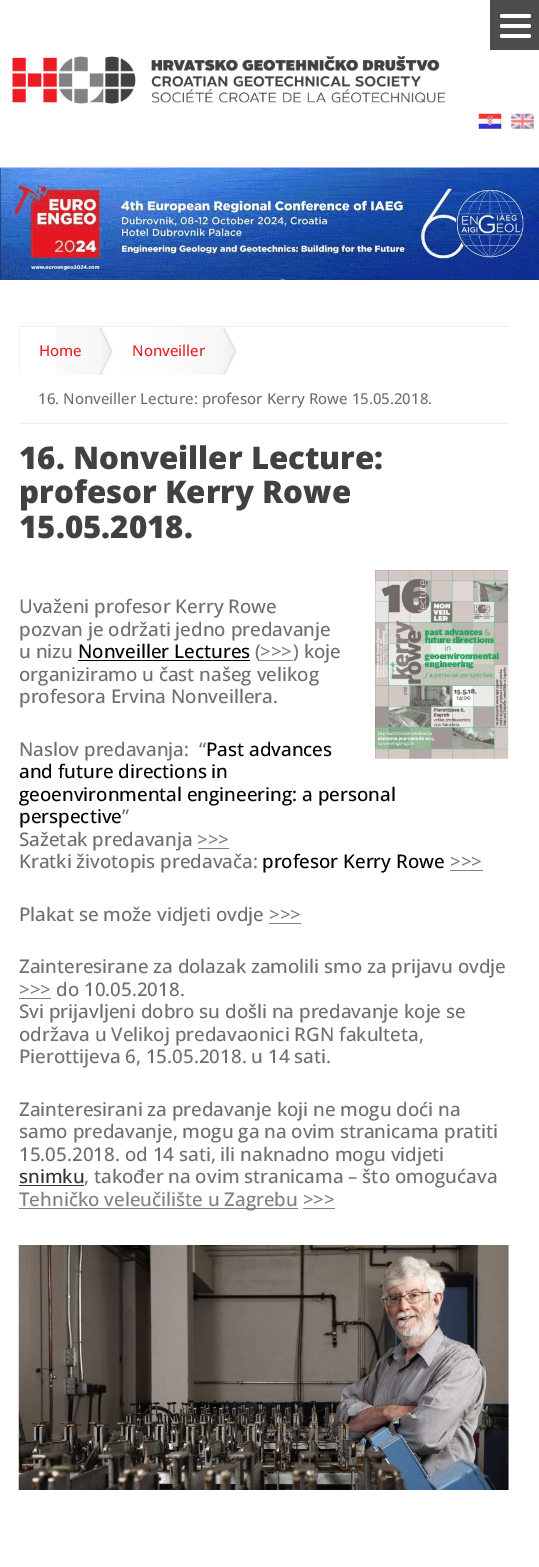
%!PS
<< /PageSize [539 1567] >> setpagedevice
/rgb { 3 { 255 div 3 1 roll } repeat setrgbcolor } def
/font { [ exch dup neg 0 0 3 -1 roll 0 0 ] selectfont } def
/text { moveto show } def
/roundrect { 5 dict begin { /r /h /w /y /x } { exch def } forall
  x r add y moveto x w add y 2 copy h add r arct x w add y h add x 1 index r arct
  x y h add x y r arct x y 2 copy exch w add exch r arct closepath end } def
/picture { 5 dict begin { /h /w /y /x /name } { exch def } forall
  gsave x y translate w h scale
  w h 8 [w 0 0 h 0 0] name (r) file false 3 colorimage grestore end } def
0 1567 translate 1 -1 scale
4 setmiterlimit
255 255 255 rgb
0 0 539 1567 rectfill
77 77 77 rgb
490 0 49 50 rectfill
255 255 255 rgb
500 24 31 4 2 roundrect fill
500 14 31 4 2 roundrect fill
500 34 31 4 2 roundrect fill
(img_01.rgb) 12 56 433 48 picture
(img_02.rgb) 478 113 24 16 picture
(img_03.rgb) 511 113 23 16 picture
(img_04.rgb) 0 167 539 113 picture
239 239 239 rgb
19 326 490 1 rectfill
19 423 490 1 rectfill
(img_05.rgb) 56 327 57 48 picture
19 328 1 47 rectfill
(img_06.rgb) 112 327 125 48 picture
0 0 0 rgb
78 660 172 1 rectfill
128 128 128 rgb
260 660 33 1 rectfill
(img_07.rgb) 375 570 134 189 picture
198 848 31 1 rectfill
450 870 33 1 rectfill
269 923 32 1 rectfill
19 998 32 1 rectfill
51 51 51 rgb
19 1185 65 1 rectfill
128 128 128 rgb
19 1208 279 1 rectfill
303 1208 32 1 rectfill
(img_08.rgb) 18 1245 491 245 picture
/OpenSans-Medium 15 font
237 28 36 rgb
(Home) 39 356 text
(Nonveiller) 132 356 text
112 111 111 rgb
(16. Nonveiller Lecture: profesor Kerry Rowe 15.05.2018.) 38 404 text
/OpenSans-ExtraBold 31.25 font
65 64 66 rgb
(16. Nonveiller Lecture:) 19 469 text
(profesor Kerry Rowe) 19 503 text
(15.05.2018.) 19 538 text
/OpenSans-Medium 18.75 font
112 111 111 rgb
(Uvaženi profesor Kerry Rowe) 19 613 text
(pozvan je održati jedno predavanje) 19 636 text
(u nizu) 19 658 text
0 0 0 rgb
(Nonveiller Lectures) 78 658 text
112 111 111 rgb
(\() 255 658 text
128 128 128 rgb
(>>>) 260 658 text
112 111 111 rgb
(\) koje) 293 658 text
(organiziramo u čast našeg velikog) 19 681 text
(profesora Ervina Nonveillera.) 19 703 text
(Naslov predavanja:  “) 19 756 text
0 0 0 rgb
(Past advances) 206 756 text
(and future directions in) 19 778 text
(geoenvironmental engineering: a personal) 19 801 text
(perspective) 19 823 text
112 111 111 rgb
(”) 122 823 text
(Sažetak predavanja) 19 846 text
128 128 128 rgb
(>>>) 197 846 text
112 111 111 rgb
(Kratki životopis predavača:) 19 868 text
0 0 0 rgb
(profesor Kerry Rowe) 262 868 text
128 128 128 rgb
(>>>) 450 868 text
112 111 111 rgb
(Plakat se može vidjeti ovdje) 19 921 text
128 128 128 rgb
(>>>) 269 921 text
112 111 111 rgb
(Zainteresirane za dolazak zamolili smo za prijavu ovdje) 19 973 text
128 128 128 rgb
(>>>) 19 996 text
112 111 111 rgb
(do 10.05.2018.) 56 996 text
(Svi prijavljeni dobro su došli na predavanje koje se) 19 1018 text
(održava u Velikoj predavaonici RGN fakulteta,) 19 1041 text
(Pierottijeva 6, 15.05.2018. u 14 sati.) 19 1063 text
(Zainteresirani za predavanje koji ne mogu doći na) 19 1116 text
(samo predavanje, mogu ga na ovim stranicama pratiti) 19 1138 text
(15.05.2018. od 14 sati, ili naknadno mogu vidjeti) 19 1161 text
51 51 51 rgb
(snimku) 19 1183 text
112 111 111 rgb
(, također na ovim stranicama – što omogućava) 84 1183 text
128 128 128 rgb
(Tehničko veleučilište u Zagrebu >>>) 19 1206 text
showpage
